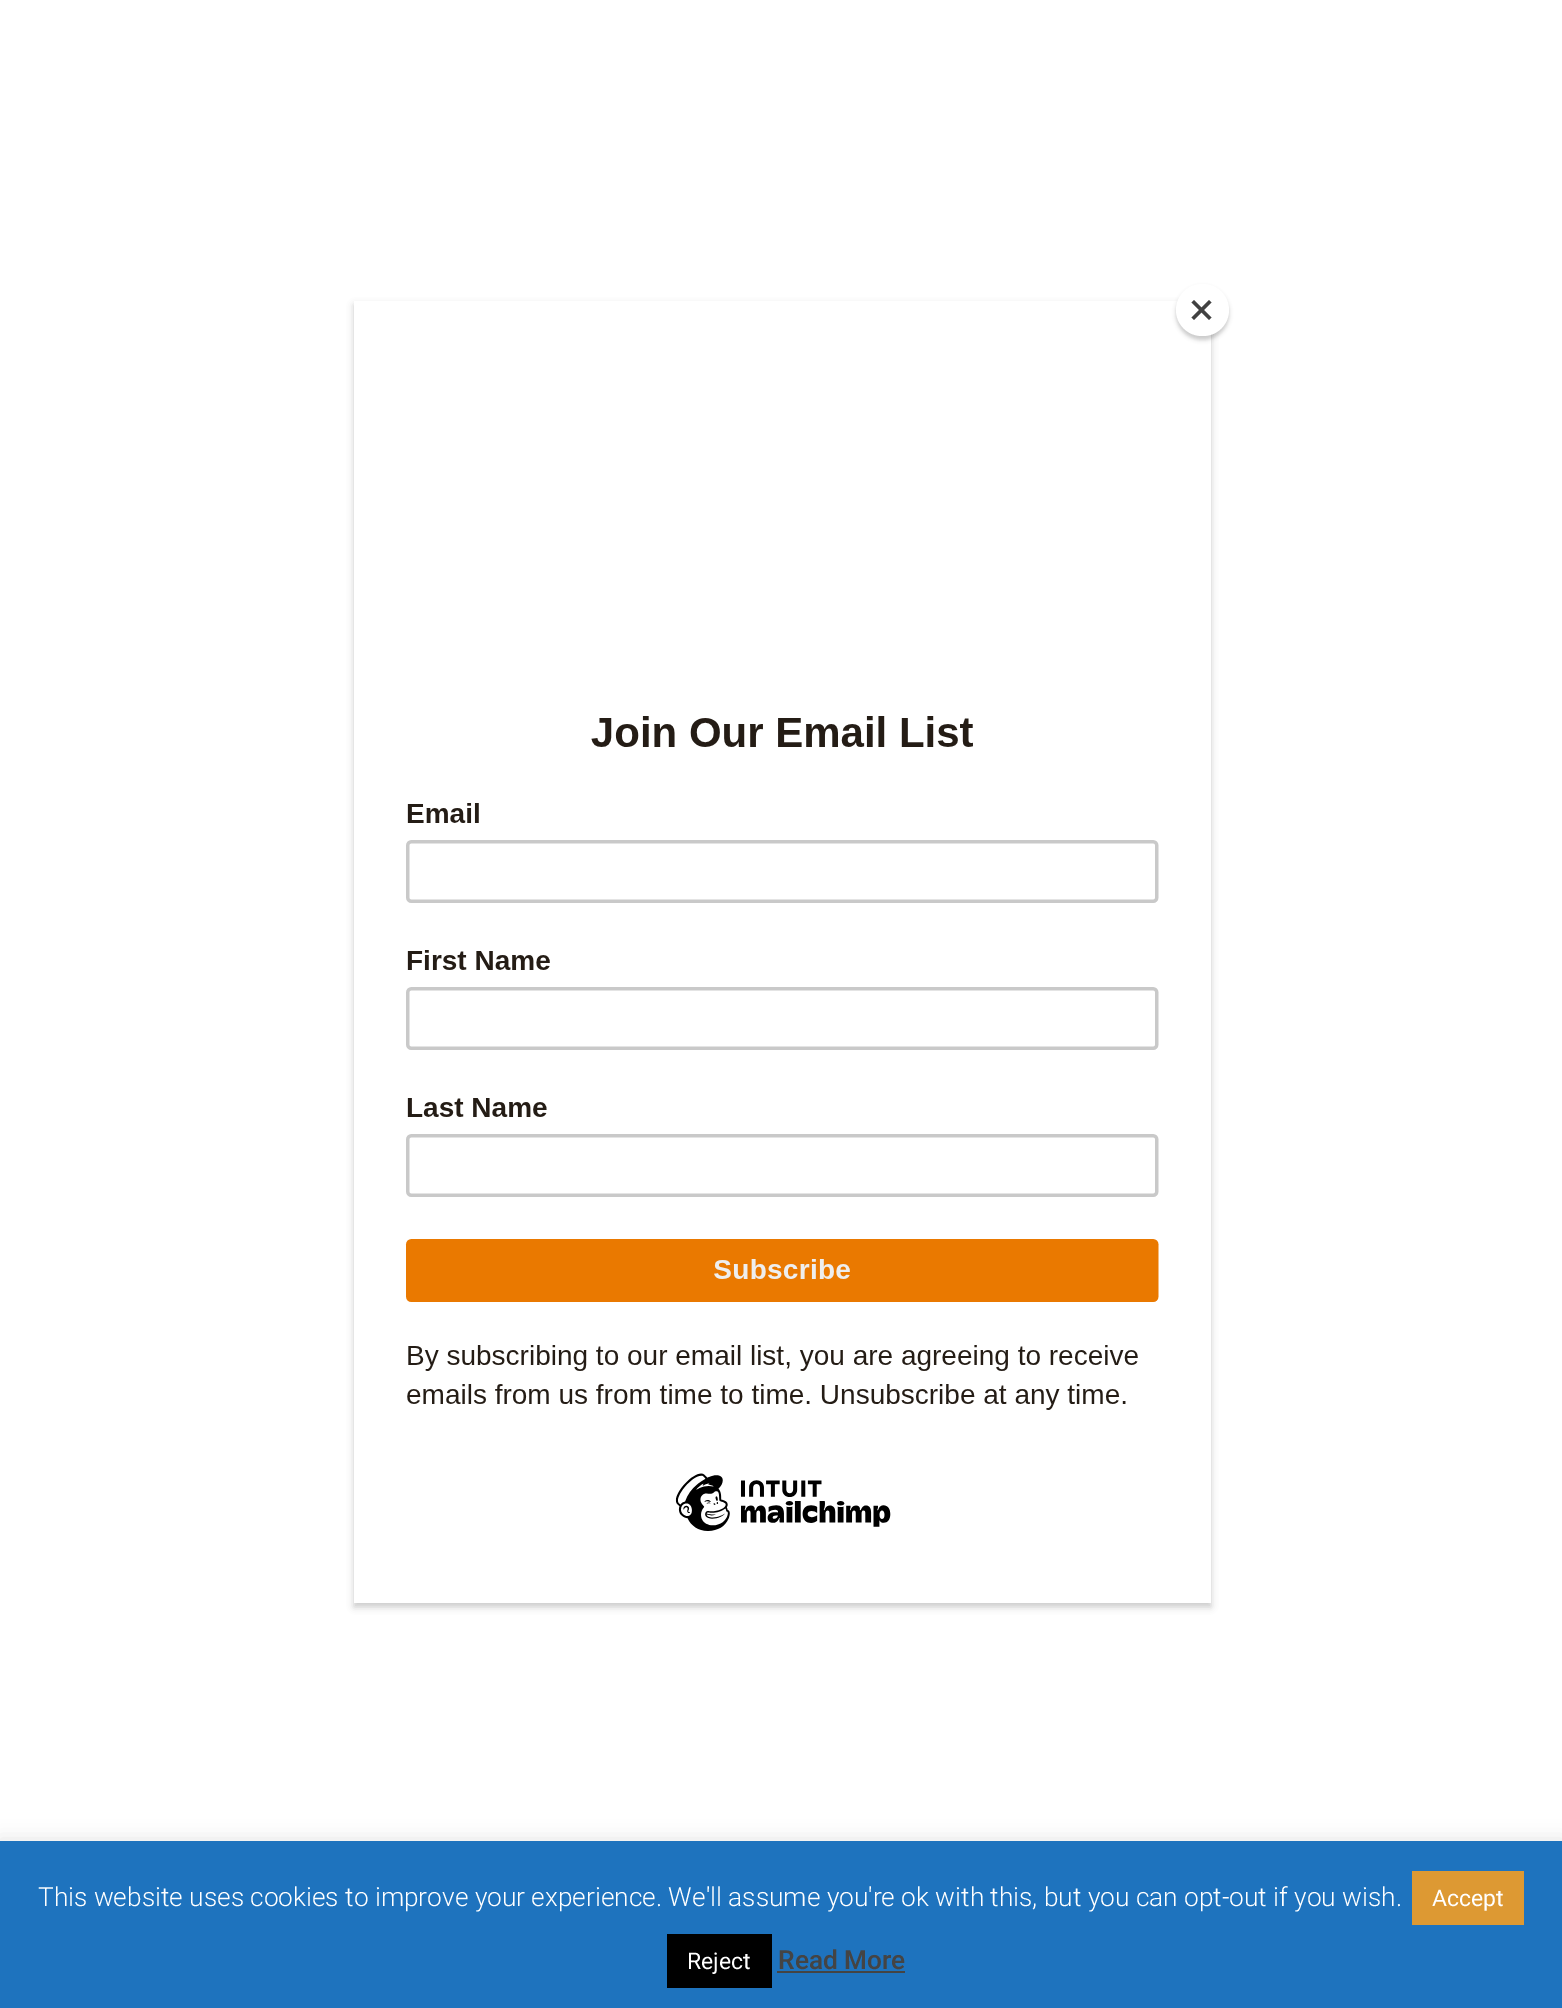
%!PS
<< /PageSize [1562 2008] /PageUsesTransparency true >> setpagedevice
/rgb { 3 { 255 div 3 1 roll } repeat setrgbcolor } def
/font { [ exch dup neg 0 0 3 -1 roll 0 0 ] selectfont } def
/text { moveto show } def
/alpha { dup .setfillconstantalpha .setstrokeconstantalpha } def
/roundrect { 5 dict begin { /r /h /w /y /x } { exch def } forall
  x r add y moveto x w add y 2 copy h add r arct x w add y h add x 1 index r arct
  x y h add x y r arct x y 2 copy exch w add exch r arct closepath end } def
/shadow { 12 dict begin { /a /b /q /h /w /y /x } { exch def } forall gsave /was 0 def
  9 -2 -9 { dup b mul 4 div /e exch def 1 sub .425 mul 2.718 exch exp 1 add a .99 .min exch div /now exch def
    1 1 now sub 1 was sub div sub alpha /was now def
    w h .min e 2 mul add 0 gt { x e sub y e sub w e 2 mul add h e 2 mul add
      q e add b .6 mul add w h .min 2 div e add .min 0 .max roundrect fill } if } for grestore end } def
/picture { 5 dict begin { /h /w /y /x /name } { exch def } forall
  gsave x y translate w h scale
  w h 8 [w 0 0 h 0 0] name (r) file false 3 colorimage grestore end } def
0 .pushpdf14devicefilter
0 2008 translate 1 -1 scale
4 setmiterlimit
255 255 255 rgb
0 0 1562 2008 rectfill
0 0 0 rgb
1176 287 53 53 26.5 2 0.2 shadow
gsave
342 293 moveto 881 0 rlineto 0 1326 rlineto -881 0 rlineto closepath 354 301 moveto 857 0 rlineto 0 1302 rlineto -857 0 rlineto closepath eoclip newpath
354 305 857 1302 0 3.5 0.2 shadow
grestore
255 255 255 rgb
1176 284 53 52 26 roundrect fill
65 65 65 rgb
1209 300 moveto 2.5 2.5 rlineto -17.5 17.5 rlineto -2.5 -2.5 rlineto closepath fill
1191.5 302.5 moveto 2.5 -2.5 rlineto 17.5 17.5 rlineto -2.5 2.5 rlineto closepath fill
(img_01.rgb) 405 716 754 815 picture
172 171 171 rgb
0 1839 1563 168 0 9 0.3 shadow
30 115 190 rgb
0 1841 1562 167 rectfill
221 153 51 rgb
1412 1871 112 54 rectfill
0 0 0 rgb
667 1934 105 54 rectfill
68 68 68 rgb
777 1971 128 2 rectfill
/Roboto-Light 26.25 font
255 255 255 rgb
(This website uses cookies to improve your experience. We'll assume you're ok with this, but you can opt-out if you wish.) 38 1906 text
/Roboto-Regular 23 font
(Accept) 1432 1906 text
(Reject) 687 1969 text
/Roboto-Medium 26.25 font
68 68 68 rgb
(Read More) 778 1969 text
.poppdf14devicefilter showpage
